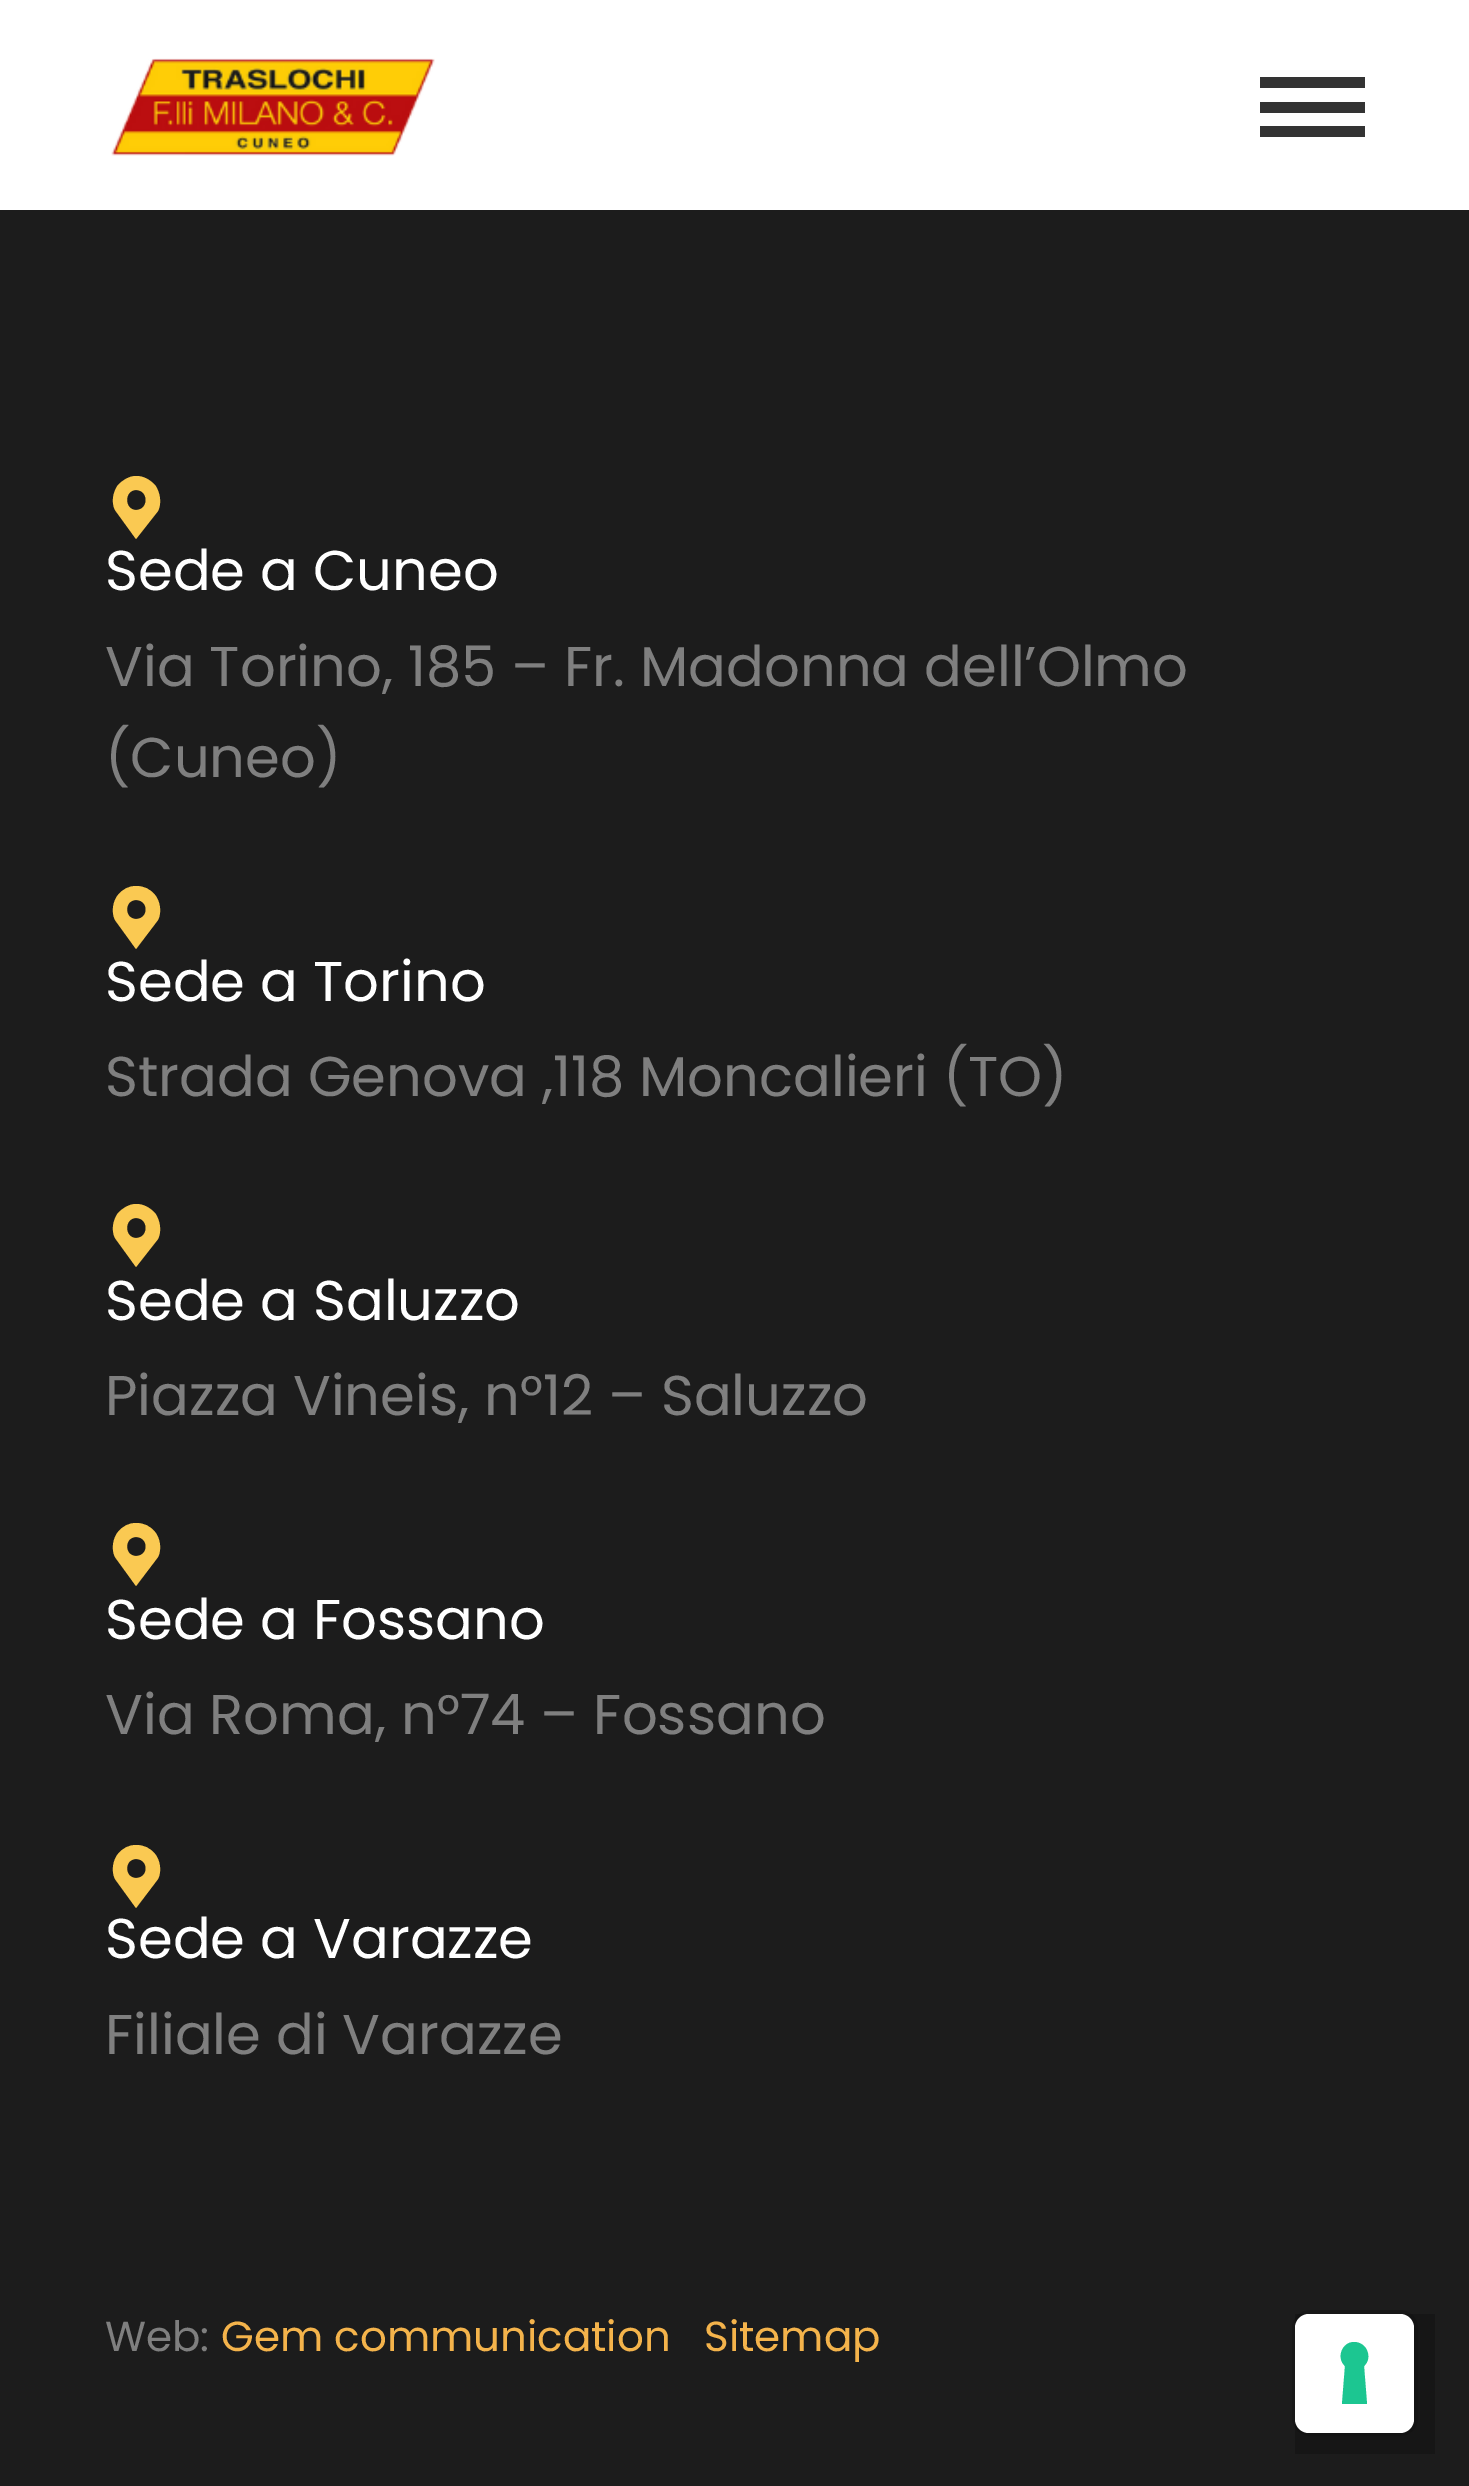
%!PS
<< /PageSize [1469 2486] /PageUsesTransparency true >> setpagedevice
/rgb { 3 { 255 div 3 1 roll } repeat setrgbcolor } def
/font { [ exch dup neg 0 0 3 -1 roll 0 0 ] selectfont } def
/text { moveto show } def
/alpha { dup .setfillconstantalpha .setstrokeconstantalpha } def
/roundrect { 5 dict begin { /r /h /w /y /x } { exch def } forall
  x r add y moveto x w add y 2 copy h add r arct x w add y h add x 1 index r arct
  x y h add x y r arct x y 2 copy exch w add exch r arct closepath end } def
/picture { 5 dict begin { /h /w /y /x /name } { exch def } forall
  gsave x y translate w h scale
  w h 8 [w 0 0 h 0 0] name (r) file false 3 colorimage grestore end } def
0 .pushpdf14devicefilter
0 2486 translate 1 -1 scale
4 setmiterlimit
28 28 28 rgb
0 0 1469 2486 rectfill
255 255 255 rgb
0 0 1469 210 rectfill
(img_01.rgb) 111 58 324 98 picture
51 51 51 rgb
1260 77 105 11 rectfill
1260 102 105 11 rectfill
1260 126 105 11 rectfill
250 201 82 rgb
136 476 moveto -7 0 -13 4 -18 9 rcurveto -5 7 -7 17 -3 25 rcurveto 21 29 rlineto 22 -28 rlineto 4 -8 2 -19 -3 -26 rcurveto -5 -5 -11 -9 -19 -9 rcurveto closepath 136 510 moveto -12 0 -12 -20 0 -20 rcurveto 13 0 13 20 0 20 rcurveto closepath fill
136 886 moveto -7 0 -13 3 -18 9 rcurveto -5 6 -7 17 -3 25 rcurveto 21 29 rlineto 22 -29 rlineto 4 -8 2 -19 -3 -25 rcurveto -5 -6 -11 -9 -19 -9 rcurveto closepath 136 919 moveto -12 0 -12 -19 0 -19 rcurveto 13 0 13 19 0 19 rcurveto closepath fill
136 1204 moveto -7 0 -13 4 -18 9 rcurveto -5 7 -7 17 -3 25 rcurveto 21 29 rlineto 22 -28 rlineto 4 -8 2 -19 -3 -26 rcurveto -5 -5 -11 -9 -19 -9 rcurveto closepath 136 1238 moveto -12 0 -12 -20 0 -20 rcurveto 13 0 13 20 0 20 rcurveto closepath fill
136 1523 moveto -7 0 -13 3 -18 9 rcurveto -5 6 -7 17 -3 25 rcurveto 21 29 rlineto 22 -29 rlineto 4 -8 2 -19 -3 -25 rcurveto -5 -6 -11 -9 -19 -9 rcurveto closepath 136 1556 moveto -12 0 -12 -19 0 -19 rcurveto 13 0 13 19 0 19 rcurveto closepath fill
136 1845 moveto -7 0 -13 3 -18 9 rcurveto -5 6 -7 17 -3 25 rcurveto 21 29 rlineto 22 -29 rlineto 4 -8 2 -19 -3 -25 rcurveto -5 -6 -11 -9 -19 -9 rcurveto closepath 136 1878 moveto -12 0 -12 -19 0 -19 rcurveto 13 0 13 19 0 19 rcurveto closepath fill
22 22 22 rgb
1295 2314 140 140 rectfill
0.15 alpha
0 0 0 rgb
4 setlinewidth
1294 2312 122 122 16 roundrect stroke
1 alpha
255 255 255 rgb
1295 2314 119 119 14 roundrect fill
28 198 145 rgb
1354 2342 moveto 13 0 19 16 10 24 rcurveto 3 38 rlineto -25 0 rlineto 3 -38 rlineto -9 -8 -3 -24 9 -24 rcurveto closepath eofill
/Poppins-Regular 56 font
255 255 255 rgb
(Sede a Cuneo) 105 590 text
127 127 127 rgb
(Via Torino, 185 – Fr. Madonna dell’Olmo) 105 686 text
(\(Cuneo\)) 105 777 text
255 255 255 rgb
(Sede a Torino) 105 1001 text
127 127 127 rgb
(Strada Genova ,118 Moncalieri \(TO\)) 105 1096 text
255 255 255 rgb
(Sede a Saluzzo) 105 1320 text
127 127 127 rgb
(Piazza Vineis, n°12 – Saluzzo) 105 1415 text
255 255 255 rgb
(Sede a Fossano) 105 1639 text
127 127 127 rgb
(Via Roma, n°74 – Fossano) 105 1734 text
255 255 255 rgb
(Sede a Varazze) 105 1958 text
127 127 127 rgb
(Filiale di Varazze) 105 2054 text
/Poppins-Regular 42 font
(Web:) 105 2351 text
244 179 75 rgb
(Gem communication) 221 2351 text
(Sitemap) 704 2351 text
.poppdf14devicefilter showpage
